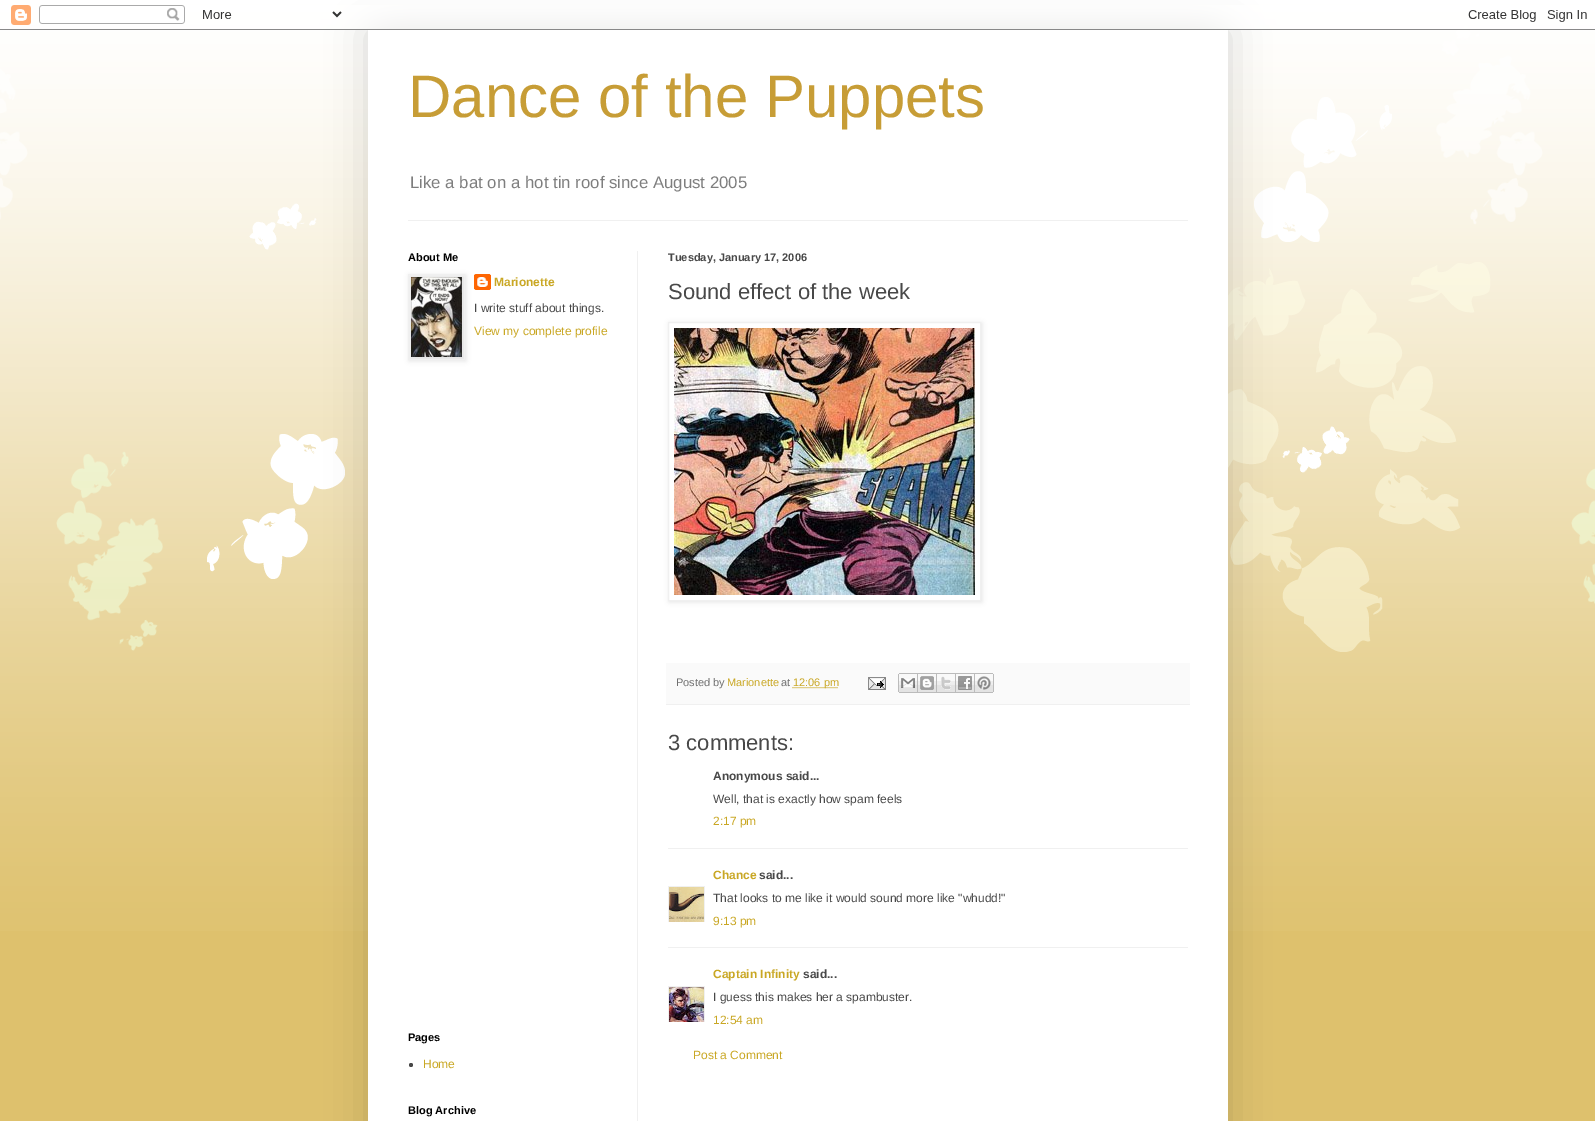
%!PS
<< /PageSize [1595 1121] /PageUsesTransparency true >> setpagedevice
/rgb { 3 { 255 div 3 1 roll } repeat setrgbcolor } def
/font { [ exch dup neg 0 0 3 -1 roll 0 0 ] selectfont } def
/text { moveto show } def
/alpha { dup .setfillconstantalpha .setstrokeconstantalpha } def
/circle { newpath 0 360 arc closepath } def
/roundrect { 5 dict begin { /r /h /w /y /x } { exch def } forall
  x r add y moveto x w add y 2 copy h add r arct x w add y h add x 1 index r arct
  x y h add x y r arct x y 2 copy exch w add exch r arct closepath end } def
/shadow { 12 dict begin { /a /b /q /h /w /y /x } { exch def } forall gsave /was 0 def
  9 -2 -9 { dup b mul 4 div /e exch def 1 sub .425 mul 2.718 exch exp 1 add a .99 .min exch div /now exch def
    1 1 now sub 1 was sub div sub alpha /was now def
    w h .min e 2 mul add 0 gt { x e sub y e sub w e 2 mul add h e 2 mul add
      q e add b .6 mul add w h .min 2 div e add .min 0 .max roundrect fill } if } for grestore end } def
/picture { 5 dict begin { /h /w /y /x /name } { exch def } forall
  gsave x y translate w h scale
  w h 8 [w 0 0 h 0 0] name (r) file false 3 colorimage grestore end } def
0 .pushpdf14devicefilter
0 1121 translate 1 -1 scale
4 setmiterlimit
222 193 109 rgb
0 0 1595 1121 rectfill
(img_01.rgb) 0 0 1595 931 picture
0 0 0 rgb
368 30 860 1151 0 20 0.15 shadow
(img_02.rgb) 0 5 1595 25 picture
255 255 255 rgb
368 30 860 1091 rectfill
240 240 240 rgb
408 220 780 1 rectfill
637 251 1 870 rectfill
(img_04.rgb) 474 274 17 16 picture
0 0 0 rgb
409 275 57 86 0 2.5 0.1 shadow
240 240 240 rgb
408.5 274.5 56 85 rectstroke
(img_03.rgb) 411 277 51 80 picture
72 72 72 rgb
411 1065 2 circle fill
gsave
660 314 moveto 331 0 rlineto 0 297 rlineto -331 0 rlineto closepath 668 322 moveto 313 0 rlineto 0 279 rlineto -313 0 rlineto closepath eoclip newpath
0 0 0 rgb
669 323 313 279 0 2.5 0.1 shadow
grestore
240 240 240 rgb
668.5 322.5 312 278 rectstroke
(img_05.rgb) 674 328 301 267 picture
250 250 250 rgb
666 663 524 41 rectfill
240 240 240 rgb
666 704 524 1 rectfill
201 167 36 rgb
[1 1] 0 setdash
792.5 687.5 moveto 45 0 rlineto stroke
(img_06.rgb) 868 677 18 13 picture
(img_07.rgb) 898 673 20 20 picture
(img_08.rgb) 918 673 19 20 picture
(img_09.rgb) 937 673 19 20 picture
(img_10.rgb) 956 673 19 20 picture
(img_11.rgb) 975 673 19 20 picture
240 240 240 rgb
668 848 520 1 rectfill
gsave
668 886 37 36 rectclip
[] 0 setdash
668.5 886.5 36 36 rectstroke
grestore
(img_12.rgb) 669 887 35 35 picture
668 947 520 1 rectfill
gsave
668 986 37 36 rectclip
[] 0 setdash
668.5 986.5 36 36 rectstroke
grestore
(img_13.rgb) 669 987 35 35 picture
/LiberationSans-Regular 60 font
199 157 54 rgb
(Dance of the Puppets) 408 117 text
/LiberationSans-Regular 16.8 font
126 126 126 rgb
(Like a bat on a hot tin roof since August 2005) 410 188 text
/LiberationSans-Bold 11 font
0 0 0 rgb
(About Me) 408 261 text
/LiberationSans-Bold 12 font
201 167 36 rgb
(Marionette) 494 286 text
/LiberationSans-Regular 12 font
72 72 72 rgb
(I write stuff about things.) 474 312 text
201 167 36 rgb
(View my complete profile) 474 335 text
/LiberationSans-Bold 11 font
0 0 0 rgb
(Pages) 408 1041 text
/LiberationSans-Regular 12 font
201 167 36 rgb
(Home) 423 1068 text
/LiberationSans-Bold 11 font
0 0 0 rgb
(Blog Archive) 408 1114 text
72 72 72 rgb
(Tuesday, January 17, 2006) 668 261 text
/LiberationSans-Regular 22 font
(Sound effect of the week) 668 299 text
/LiberationSans-Regular 11 font
112 112 112 rgb
(Posted by) 676 686 text
201 167 36 rgb
(Marionette) 727 686 text
112 112 112 rgb
(at) 781 686 text
201 167 36 rgb
(12:06 pm) 793 686 text
/LiberationSans-Regular 22 font
72 72 72 rgb
(3 comments:) 668 750 text
/LiberationSans-Bold 12 font
(Anonymous said...) 713 780 text
/LiberationSans-Regular 12 font
(Well, that is exactly how spam feels) 713 803 text
201 167 36 rgb
(2:17 pm) 713 825 text
/LiberationSans-Bold 12 font
(Chance) 713 879 text
72 72 72 rgb
(said...) 759 879 text
/LiberationSans-Regular 12 font
(That looks to me like it would sound more like "whudd!") 713 902 text
201 167 36 rgb
(9:13 pm) 713 925 text
/LiberationSans-Bold 12 font
(Captain Infinity) 713 978 text
72 72 72 rgb
(said...) 803 978 text
/LiberationSans-Regular 12 font
(I guess this makes her a spambuster.) 713 1001 text
201 167 36 rgb
(12:54 am) 713 1024 text
(Post a Comment) 693 1059 text
.poppdf14devicefilter showpage
